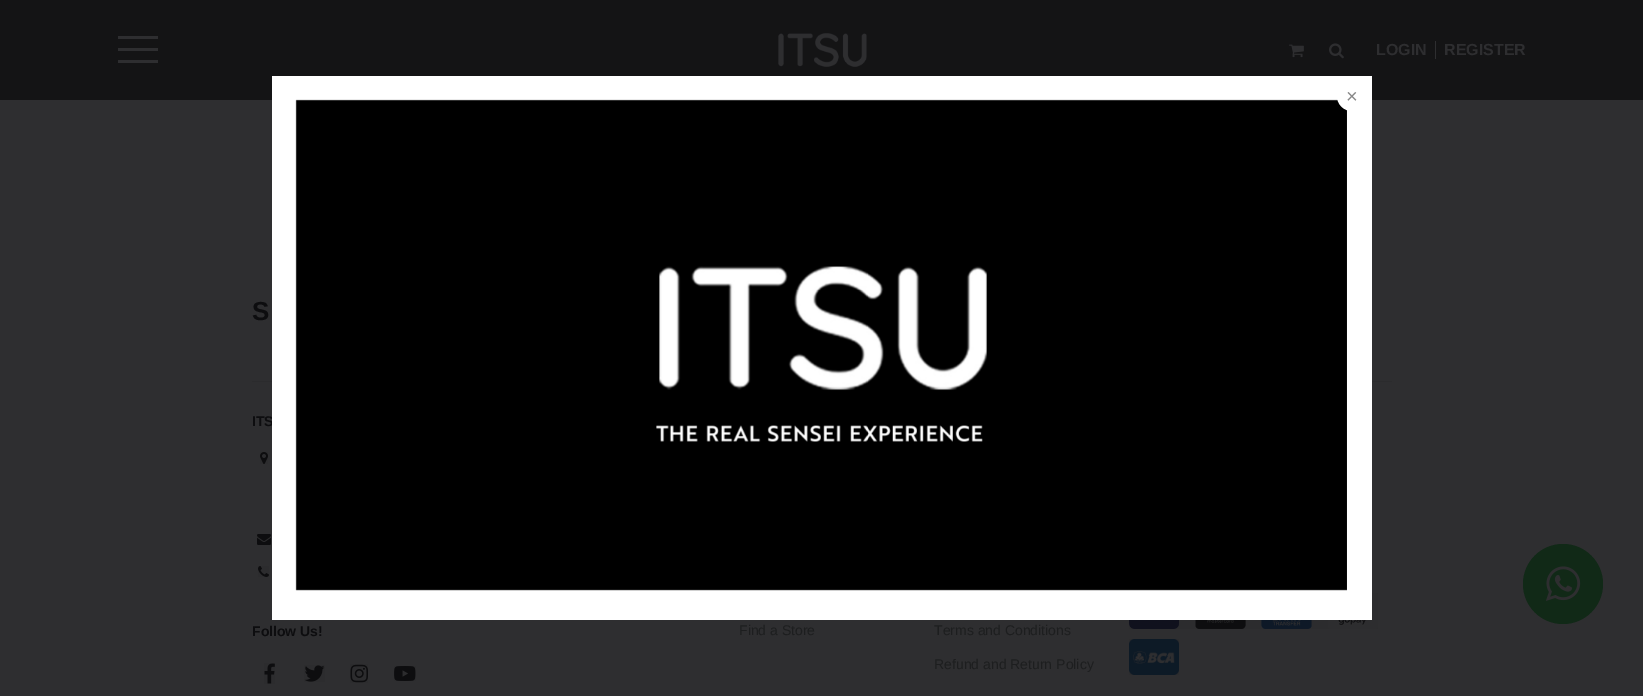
%!PS
<< /PageSize [1643 696] >> setpagedevice
/rgb { 3 { 255 div 3 1 roll } repeat setrgbcolor } def
/font { [ exch dup neg 0 0 3 -1 roll 0 0 ] selectfont } def
/text { moveto show } def
/circle { newpath 0 360 arc closepath } def
/picture { 5 dict begin { /h /w /y /x /name } { exch def } forall
  gsave x y translate w h scale
  w h 8 [w 0 0 h 0 0] name (r) file false 3 colorimage grestore end } def
0 696 translate 1 -1 scale
4 setmiterlimit
46 46 48 rgb
0 0 1643 696 rectfill
20 20 21 rgb
0 0 1643 100 rectfill
46 46 48 rgb
118 48 40 3 rectfill
118 36 40 3 rectfill
118 60 40 3 rectfill
(img_01.rgb) 778 33 89 34 picture
(img_02.rgb) 1289 44 15 14 picture
(img_03.rgb) 1329 43 15 16 picture
1435 41 1 18 rectfill
43 43 45 rgb
252 381 1140 1 rectfill
(img_05.rgb) 260 452 8 12 picture
(img_06.rgb) 257 534 14 11 picture
(img_07.rgb) 258 566 11 11 picture
(img_08.rgb) 264 663 11 21 picture
(img_09.rgb) 304 665 21 17 picture
(img_10.rgb) 350 664 18 19 picture
(img_11.rgb) 394 666 22 15 picture
(img_12.rgb) 1129 593 249 36 picture
(img_13.rgb) 1129 639 50 36 picture
17 41 23 rgb
1563 584 40 circle fill
(img_14.rgb) 1545 566 36 35 picture
/Arimo-Bold 16 font
46 46 48 rgb
(LOGIN) 1376 55 text
(REGISTER) 1444 55 text
/Arimo-Bold 26 font
13 13 15 rgb
(S) 252 320 text
/Arimo-Bold 14 font
(ITS) 252 426 text
255 255 255 rgb
272 76 1100 544 rectfill
(img_04.rgb) 295 99 1052 492 picture
1352 96 15 circle fill
/LiberationSans-Regular 20 font
136 136 136 rgb
(×) 1346 103 text
/Arimo-Bold 14 font
13 13 15 rgb
(Follow Us!) 252 636 text
/Arimo-Regular 14 font
29 30 31 rgb
(Find a Store) 739 635 text
(Terms and Conditions) 934 635 text
(Refund and Return Policy) 934 669 text
showpage
